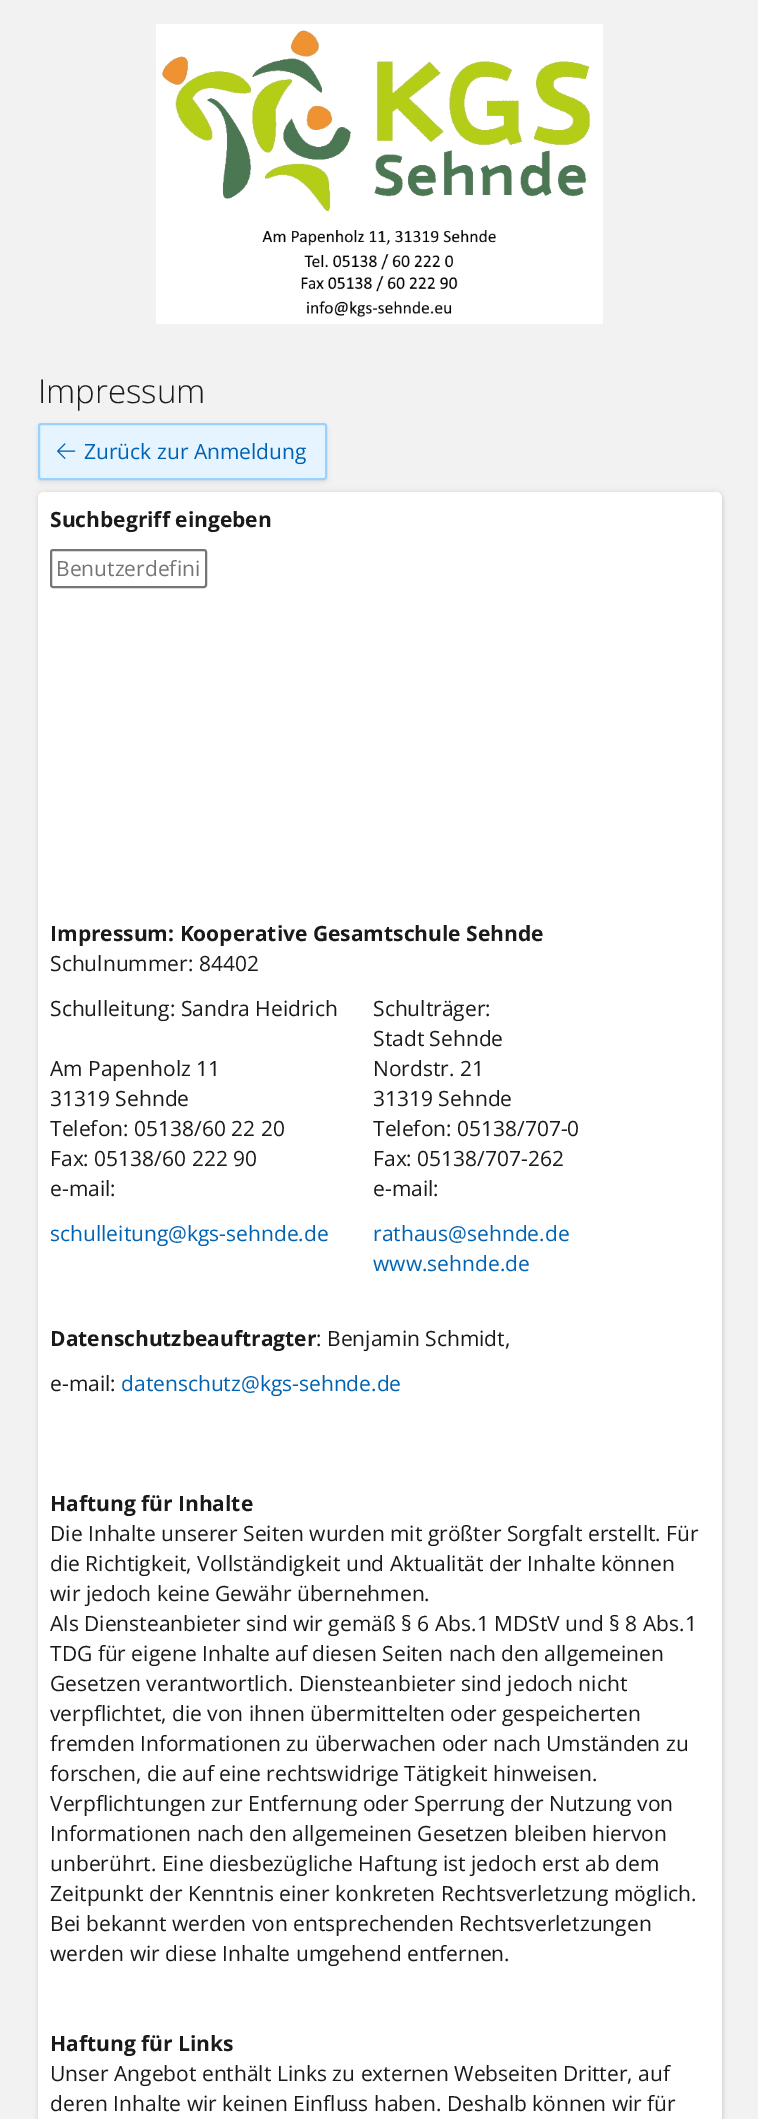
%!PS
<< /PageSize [758 2119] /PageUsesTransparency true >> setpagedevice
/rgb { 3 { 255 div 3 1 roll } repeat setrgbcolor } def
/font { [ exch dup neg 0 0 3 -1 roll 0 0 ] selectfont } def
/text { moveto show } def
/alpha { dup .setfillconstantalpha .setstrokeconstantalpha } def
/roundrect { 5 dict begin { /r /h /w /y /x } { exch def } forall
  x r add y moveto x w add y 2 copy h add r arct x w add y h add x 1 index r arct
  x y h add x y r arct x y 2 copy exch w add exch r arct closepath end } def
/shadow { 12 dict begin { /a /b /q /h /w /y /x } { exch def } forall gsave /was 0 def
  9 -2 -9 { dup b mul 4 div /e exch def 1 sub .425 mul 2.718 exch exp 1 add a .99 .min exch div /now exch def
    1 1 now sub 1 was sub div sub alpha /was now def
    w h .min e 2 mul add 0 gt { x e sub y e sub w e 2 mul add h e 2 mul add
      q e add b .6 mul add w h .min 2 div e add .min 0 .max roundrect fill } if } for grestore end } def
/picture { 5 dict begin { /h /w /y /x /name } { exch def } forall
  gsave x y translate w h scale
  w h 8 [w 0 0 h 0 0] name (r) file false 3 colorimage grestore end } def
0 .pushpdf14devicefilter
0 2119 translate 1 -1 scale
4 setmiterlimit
242 242 242 rgb
0 0 758 2119 rectfill
(img_01.rgb) 156 24 447 300 picture
0 0 0 rgb
38 425 289 57 3 2 0.08 shadow
230 244 255 rgb
39 424 287 55 2 roundrect gsave fill grestore
153 209 255 rgb
2 setlinewidth
stroke
(img_02.rgb) 57 443 19 16 picture
0 0 0 rgb
38 492 684 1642 6 3 0.08 shadow
39 494 684 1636 6 1.5 0.08 shadow
255 255 255 rgb
38 492 684 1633 6 roundrect fill
118 118 118 rgb
51 550 155 37 2 roundrect stroke
/OpenSans-Light 33 font
26 26 26 rgb
(Impressum) 38 403 text
/OpenSans-Regular 21 font
0 98 179 rgb
(Zurück zur Anmeldung) 84 459 text
/OpenSans-Bold 21 font
26 26 26 rgb
(Suchbegriff eingeben) 50 527 text
/OpenSans-Regular 21 font
117 117 117 rgb
(Benutzerdefini) 56 576 text
/OpenSans-Bold 21 font
26 26 26 rgb
(Impressum: Kooperative Gesamtschule Sehnde) 50 941 text
/OpenSans-Regular 21 font
(Schulnummer: 84402) 50 971 text
(Schulleitung: Sandra Heidrich) 50 1016 text
(Am Papenholz 11) 50 1076 text
(31319 Sehnde) 50 1106 text
(Telefon: 05138/60 22 20) 50 1136 text
(Fax: 05138/60 222 90) 50 1166 text
(e-mail:) 50 1196 text
0 98 179 rgb
(schulleitung@kgs-sehnde.de) 50 1241 text
26 26 26 rgb
(Schulträger:) 373 1016 text
(Stadt Sehnde) 373 1046 text
(Nordstr. 21) 373 1076 text
(31319 Sehnde) 373 1106 text
(Telefon: 05138/707-0) 373 1136 text
(Fax: 05138/707-262) 373 1166 text
(e-mail:) 373 1196 text
0 98 179 rgb
(rathaus@sehnde.de) 373 1241 text
(www.sehnde.de) 373 1271 text
/OpenSans-Bold 21 font
26 26 26 rgb
(Datenschutzbeauftragter) 50 1346 text
/OpenSans-Regular 21 font
(: Benjamin Schmidt,) 316 1346 text
(e-mail:) 50 1391 text
0 98 179 rgb
(datenschutz@kgs-sehnde.de) 121 1391 text
/OpenSans-Bold 21 font
26 26 26 rgb
(Haftung für Inhalte) 50 1511 text
/OpenSans-Regular 21 font
(Die Inhalte unserer Seiten wurden mit größter Sorgfalt erstellt. Für) 50 1541 text
(die Richtigkeit, Vollständigkeit und Aktualität der Inhalte können) 50 1571 text
(wir jedoch keine Gewähr übernehmen.) 50 1601 text
(Als Diensteanbieter sind wir gemäß § 6 Abs.1 MDStV und § 8 Abs.1) 50 1631 text
(TDG für eigene Inhalte auf diesen Seiten nach den allgemeinen) 50 1661 text
(Gesetzen verantwortlich. Diensteanbieter sind jedoch nicht) 50 1691 text
(verpflichtet, die von ihnen übermittelten oder gespeicherten) 50 1721 text
(fremden Informationen zu überwachen oder nach Umständen zu) 50 1751 text
(forschen, die auf eine rechtswidrige Tätigkeit hinweisen.) 50 1781 text
(Verpflichtungen zur Entfernung oder Sperrung der Nutzung von) 50 1811 text
(Informationen nach den allgemeinen Gesetzen bleiben hiervon) 50 1841 text
(unberührt. Eine diesbezügliche Haftung ist jedoch erst ab dem) 50 1871 text
(Zeitpunkt der Kenntnis einer konkreten Rechtsverletzung möglich.) 50 1901 text
(Bei bekannt werden von entsprechenden Rechtsverletzungen) 50 1931 text
(werden wir diese Inhalte umgehend entfernen.) 50 1961 text
/OpenSans-Bold 21 font
(Haftung für Links) 50 2051 text
/OpenSans-Regular 21 font
(Unser Angebot enthält Links zu externen Webseiten Dritter, auf) 50 2081 text
(deren Inhalte wir keinen Einfluss haben. Deshalb können wir für) 50 2111 text
.poppdf14devicefilter showpage
